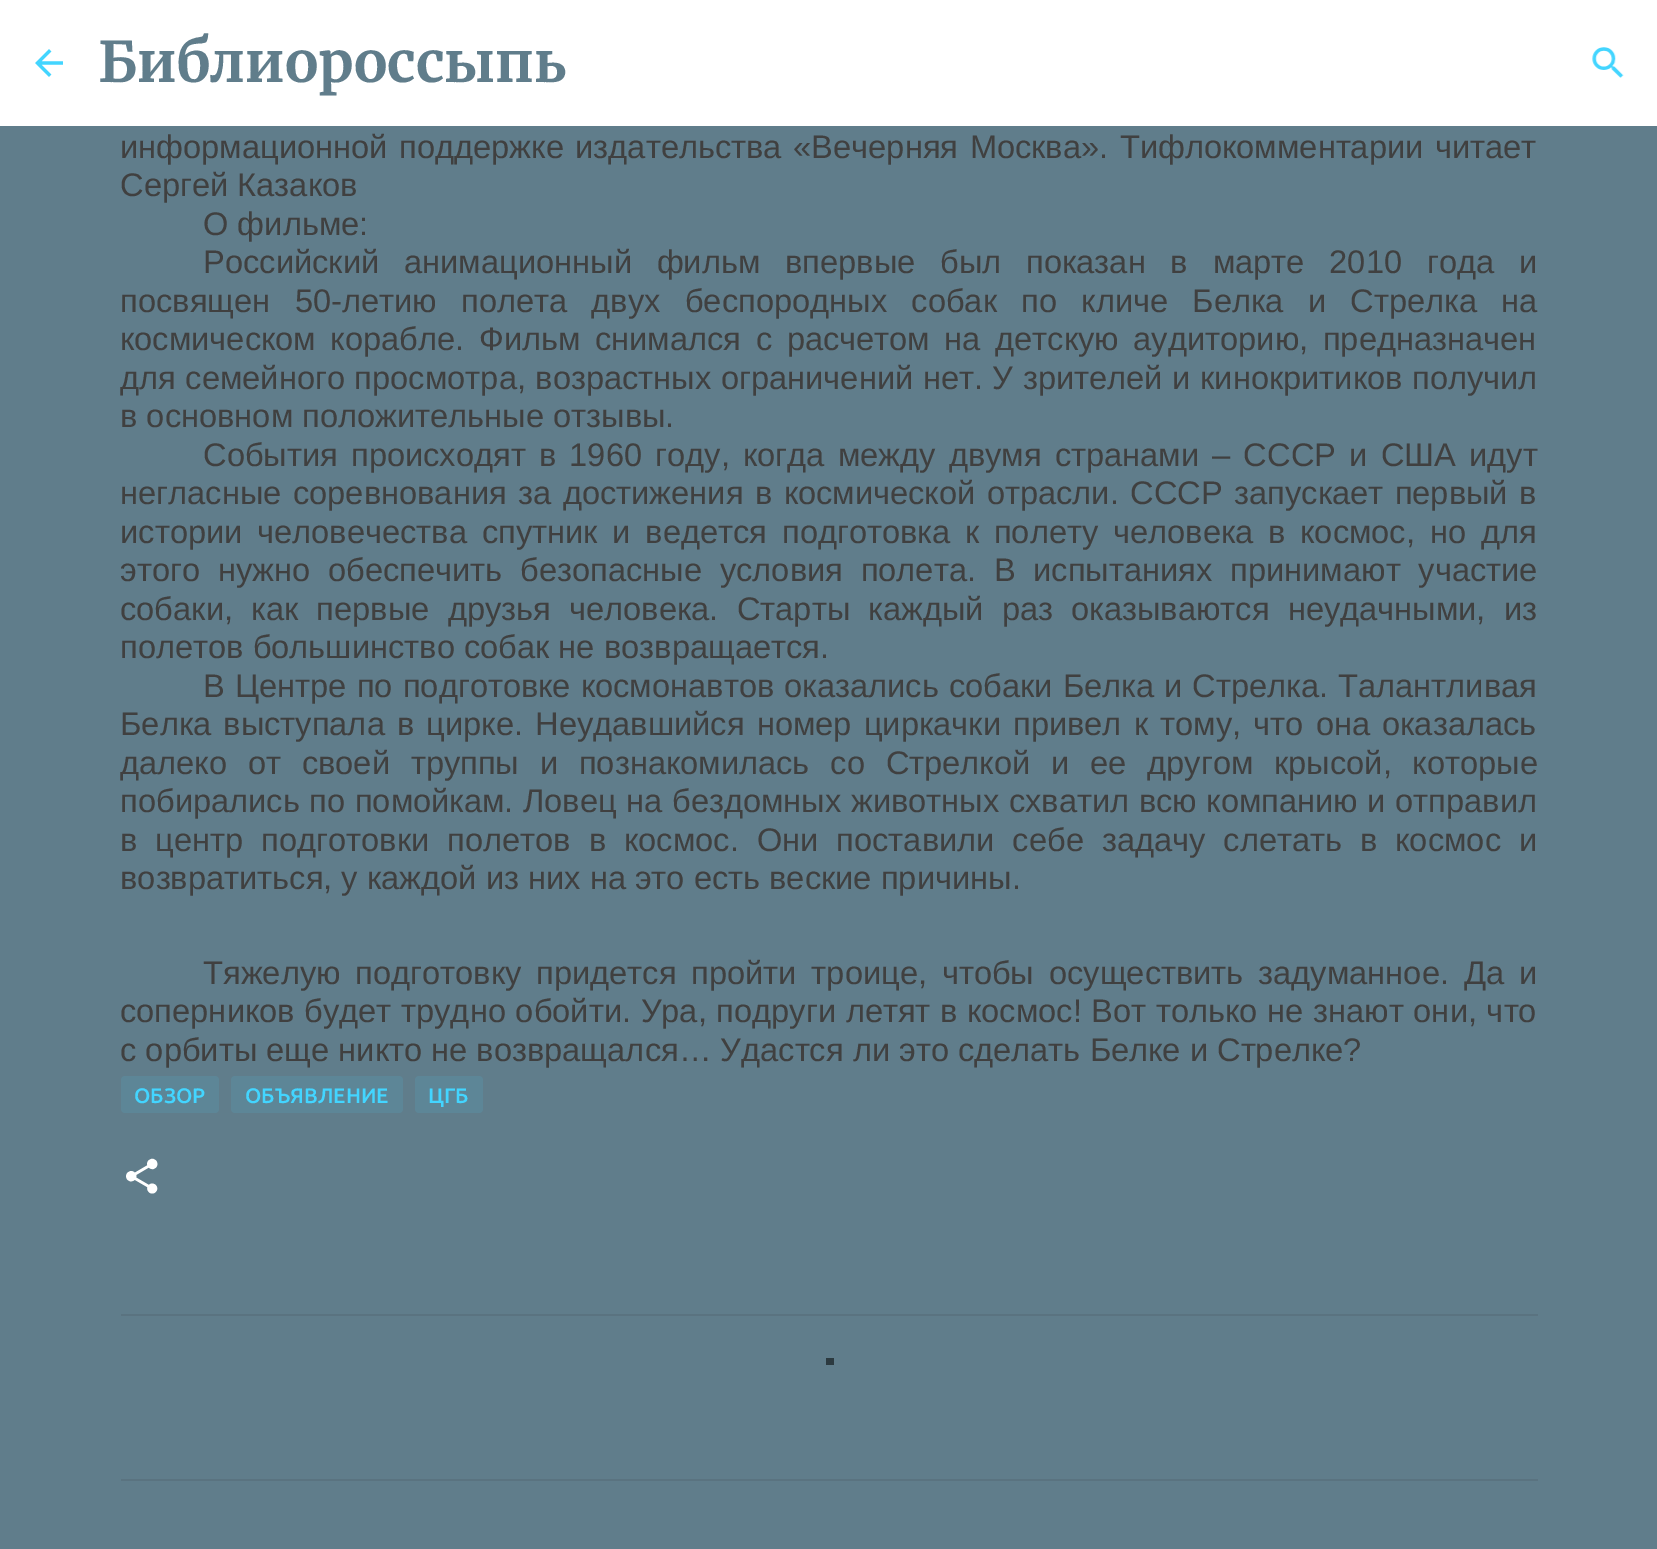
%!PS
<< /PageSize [1657 1549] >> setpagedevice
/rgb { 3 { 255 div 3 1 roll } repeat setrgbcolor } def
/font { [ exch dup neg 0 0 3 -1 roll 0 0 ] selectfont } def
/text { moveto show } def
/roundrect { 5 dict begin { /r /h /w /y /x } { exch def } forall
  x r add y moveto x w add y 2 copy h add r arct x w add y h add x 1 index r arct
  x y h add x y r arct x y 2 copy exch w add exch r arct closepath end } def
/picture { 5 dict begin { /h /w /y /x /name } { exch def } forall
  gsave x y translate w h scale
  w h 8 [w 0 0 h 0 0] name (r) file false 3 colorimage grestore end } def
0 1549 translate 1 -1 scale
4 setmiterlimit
96 125 139 rgb
0 0 1657 1549 rectfill
255 255 255 rgb
0 0 1657 126 rectfill
(img_01.rgb) 35 49 28 28 picture
(img_02.rgb) 1592 47 32 31 picture
93 134 151 rgb
121 1076 98 37 4 roundrect fill
231 1076 172 37 4 roundrect fill
415 1076 68 37 4 roundrect fill
(img_03.rgb) 126 1158 32 36 picture
90 115 128 rgb
121 1314 1417 2 rectfill
121 1479 1417 2 rectfill
44 58 64 rgb
826 1358 8 7 rectfill
/Merriweather-Bold 56 font
96 125 139 rgb
(Библиороссыпь) 98 82 text
/LiberationSans-Regular 32.65 font
64 64 64 rgb
120 158 moveto 2.5 0 32 (информационной поддержке издательства «Вечерняя Москва». Тифлокомментарии читает) widthshow
(Сергей Казаков) 120 196 text
(О фильме:) 203 235 text
203 273 moveto 15.75 0 32 (Российский анимационный фильм впервые был показан в марте 2010 года и) widthshow
120 312 moveto 15.25 0 32 (посвящен 50-летию полета двух беспородных собак по кличе Белка и Стрелка на) widthshow
120 350 moveto 5.5 0 32 (космическом корабле. Фильм снимался с расчетом на детскую аудиторию, предназначен) widthshow
120 389 moveto 0.5 0 32 (для семейного просмотра, возрастных ограничений нет. У зрителей и кинокритиков получил) widthshow
(в основном положительные отзывы.) 120 427 text
203 466 moveto 4.1 0 32 (События происходят в 1960 году, когда между двумя странами – СССР и США идут) widthshow
120 504 moveto 2.4 0 32 (негласные соревнования за достижения в космической отрасли. СССР запускает первый в) widthshow
120 543 moveto 5.75 0 32 (истории человечества спутник и ведется подготовка к полету человека в космос, но для) widthshow
120 581 moveto 8.75 0 32 (этого нужно обеспечить безопасные условия полета. В испытаниях принимают участие) widthshow
120 620 moveto 9.25 0 32 (собаки, как первые друзья человека. Старты каждый раз оказываются неудачными, из) widthshow
(полетов большинство собак не возвращается.) 120 658 text
203 697 moveto 1.1 0 32 (В Центре по подготовке космонавтов оказались собаки Белка и Стрелка. Талантливая) widthshow
120 735 moveto 3.1 0 32 (Белка выступала в цирке. Неудавшийся номер циркачки привел к тому, что она оказалась) widthshow
120 774 moveto 11.75 0 32 (далеко от своей труппы и познакомилась со Стрелкой и ее другом крысой, которые) widthshow
120 812 moveto 0.5 0 32 (побирались по помойкам. Ловец на бездомных животных схватил всю компанию и отправил) widthshow
120 851 moveto 8.9 0 32 (в центр подготовки полетов в космос. Они поставили себе задачу слетать в космос и) widthshow
(возвратиться, у каждой из них на это есть веские причины.) 120 889 text
203 984 moveto 5.75 0 32 (Тяжелую подготовку придется пройти троице, чтобы осуществить задуманное. Да и) widthshow
120 1022 moveto 0.6 0 32 (соперников будет трудно обойти. Ура, подруги летят в космос! Вот только не знают они, что) widthshow
(с орбиты еще никто не возвращался… Удастся ли это сделать Белке и Стрелке?) 120 1061 text
/Ubuntu-Medium 21 font
67 213 255 rgb
(ОБЗОР) 134 1103 text
(ОБЪЯВЛЕНИЕ) 245 1103 text
(ЦГБ) 428 1103 text
showpage
